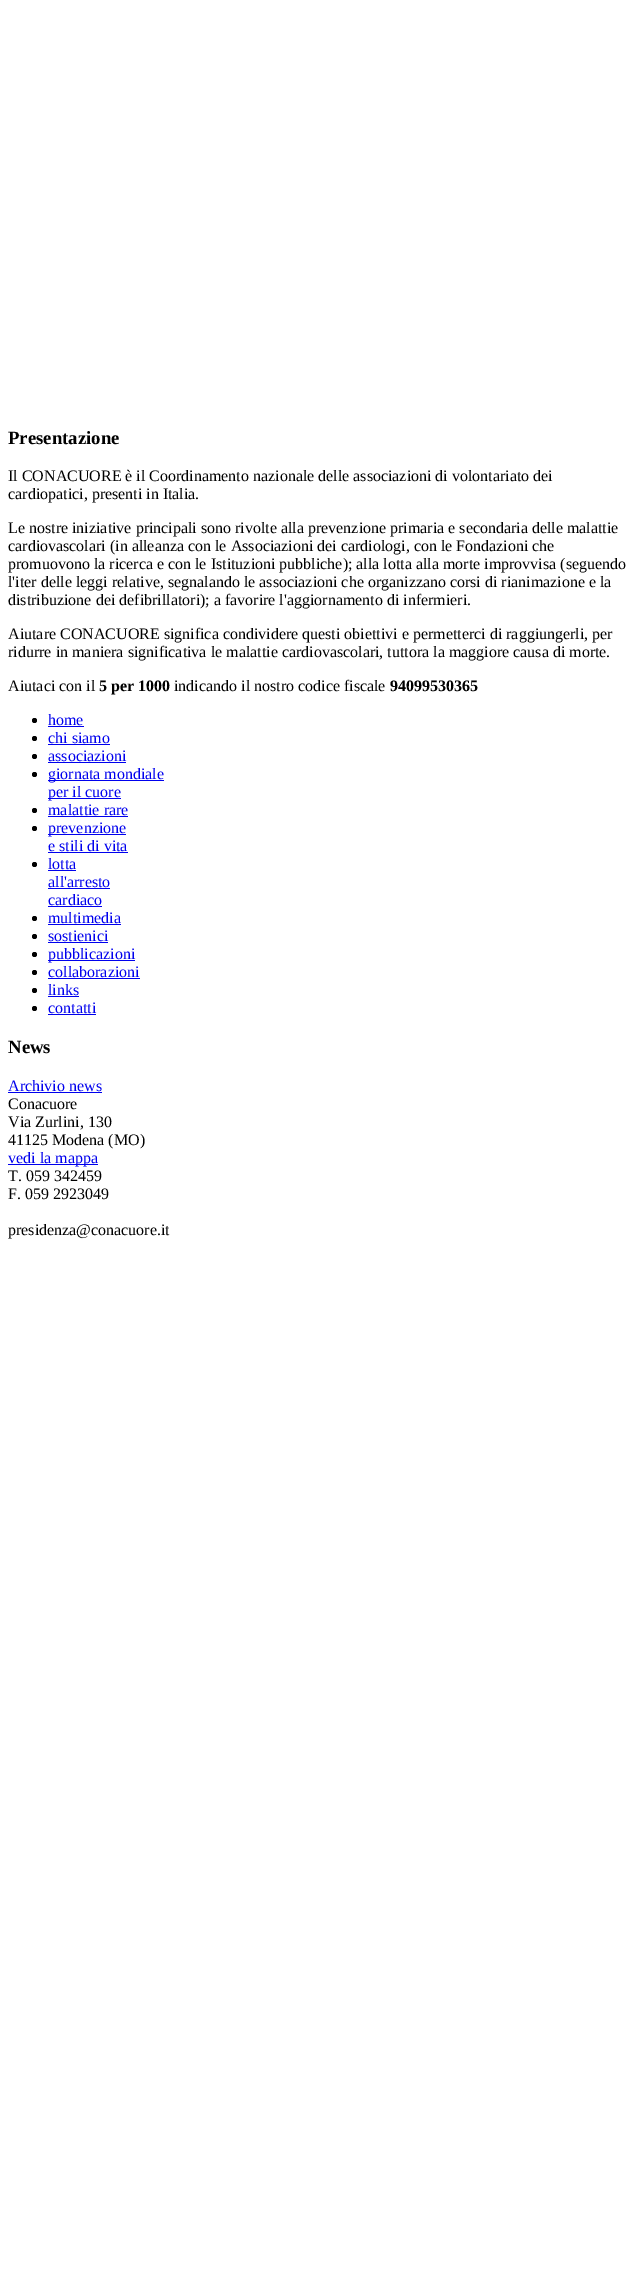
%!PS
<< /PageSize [644 2270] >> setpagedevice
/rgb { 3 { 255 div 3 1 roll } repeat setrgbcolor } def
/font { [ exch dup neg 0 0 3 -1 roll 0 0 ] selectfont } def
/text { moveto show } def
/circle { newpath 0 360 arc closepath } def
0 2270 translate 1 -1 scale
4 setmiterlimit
255 255 255 rgb
0 0 644 2270 rectfill
0 0 0 rgb
34.5 720.5 2.5 circle fill
0 0 238 rgb
48 726 36 1 rectfill
0 0 0 rgb
34.5 738.5 2.5 circle fill
0 0 238 rgb
48 744 62 1 rectfill
0 0 0 rgb
34.5 756.5 2.5 circle fill
0 0 238 rgb
48 762 78 1 rectfill
0 0 0 rgb
34.5 774.5 2.5 circle fill
0 0 238 rgb
48 780 116 1 rectfill
48 798 73 1 rectfill
0 0 0 rgb
34.5 810.5 2.5 circle fill
0 0 238 rgb
48 816 80 1 rectfill
0 0 0 rgb
34.5 828.5 2.5 circle fill
0 0 238 rgb
48 834 78 1 rectfill
48 852 80 1 rectfill
0 0 0 rgb
34.5 864.5 2.5 circle fill
0 0 238 rgb
48 870 28 1 rectfill
48 888 62 1 rectfill
48 906 54 1 rectfill
0 0 0 rgb
34.5 918.5 2.5 circle fill
0 0 238 rgb
48 924 73 1 rectfill
0 0 0 rgb
34.5 936.5 2.5 circle fill
0 0 238 rgb
48 942 60 1 rectfill
0 0 0 rgb
34.5 954.5 2.5 circle fill
0 0 238 rgb
48 960 87 1 rectfill
0 0 0 rgb
34.5 972.5 2.5 circle fill
0 0 238 rgb
48 978 92 1 rectfill
0 0 0 rgb
34.5 990.5 2.5 circle fill
0 0 238 rgb
48 996 31 1 rectfill
0 0 0 rgb
34.5 1008.5 2.5 circle fill
0 0 238 rgb
48 1014 48 1 rectfill
8 1092 94 1 rectfill
8 1164 90 1 rectfill
/LiberationSerif-Bold 18.75 font
0 0 0 rgb
(Presentazione) 8 444 text
/LiberationSerif-Regular 16 font
(Il CONACUORE è il Coordinamento nazionale delle associazioni di volontariato dei) 8 481 text
(cardiopatici, presenti in Italia.) 8 499 text
(Le nostre iniziative principali sono rivolte alla prevenzione primaria e secondaria delle malattie) 8 533 text
(cardiovascolari \(in alleanza con le Associazioni dei cardiologi, con le Fondazioni che) 8 551 text
(promuovono la ricerca e con le Istituzioni pubbliche\); alla lotta alla morte improvvisa \(seguendo) 8 569 text
(l'iter delle leggi relative, segnalando le associazioni che organizzano corsi di rianimazione e la) 8 587 text
(distribuzione dei defibrillatori\); a favorire l'aggiornamento di infermieri.) 8 605 text
(Aiutare CONACUORE significa condividere questi obiettivi e permetterci di raggiungerli, per) 8 639 text
(ridurre in maniera significativa le malattie cardiovascolari, tuttora la maggiore causa di morte.) 8 657 text
(Aiutaci con il) 8 691 text
/LiberationSerif-Bold 16 font
(5 per 1000) 99 691 text
/LiberationSerif-Regular 16 font
(indicando il nostro codice fiscale) 174 691 text
/LiberationSerif-Bold 16 font
(94099530365) 390 691 text
/LiberationSerif-Regular 16 font
0 0 238 rgb
(home) 48 725 text
(chi siamo) 48 743 text
(associazioni) 48 761 text
(giornata mondiale) 48 779 text
(per il cuore) 48 797 text
(malattie rare) 48 815 text
(prevenzione) 48 833 text
(e stili di vita) 48 851 text
(lotta) 48 869 text
(all'arresto) 48 887 text
(cardiaco) 48 905 text
(multimedia) 48 923 text
(sostienici) 48 941 text
(pubblicazioni) 48 959 text
(collaborazioni) 48 977 text
(links) 48 995 text
(contatti) 48 1013 text
/LiberationSerif-Bold 18.75 font
0 0 0 rgb
(News) 8 1053 text
/LiberationSerif-Regular 16 font
0 0 238 rgb
(Archivio news) 8 1091 text
0 0 0 rgb
(Conacuore) 8 1109 text
(Via Zurlini, 130) 8 1127 text
(41125 Modena \(MO\)) 8 1145 text
0 0 238 rgb
(vedi la mappa) 8 1163 text
0 0 0 rgb
(T. 059 342459) 8 1181 text
(F. 059 2923049) 8 1199 text
(presidenza@conacuore.it) 8 1235 text
showpage
